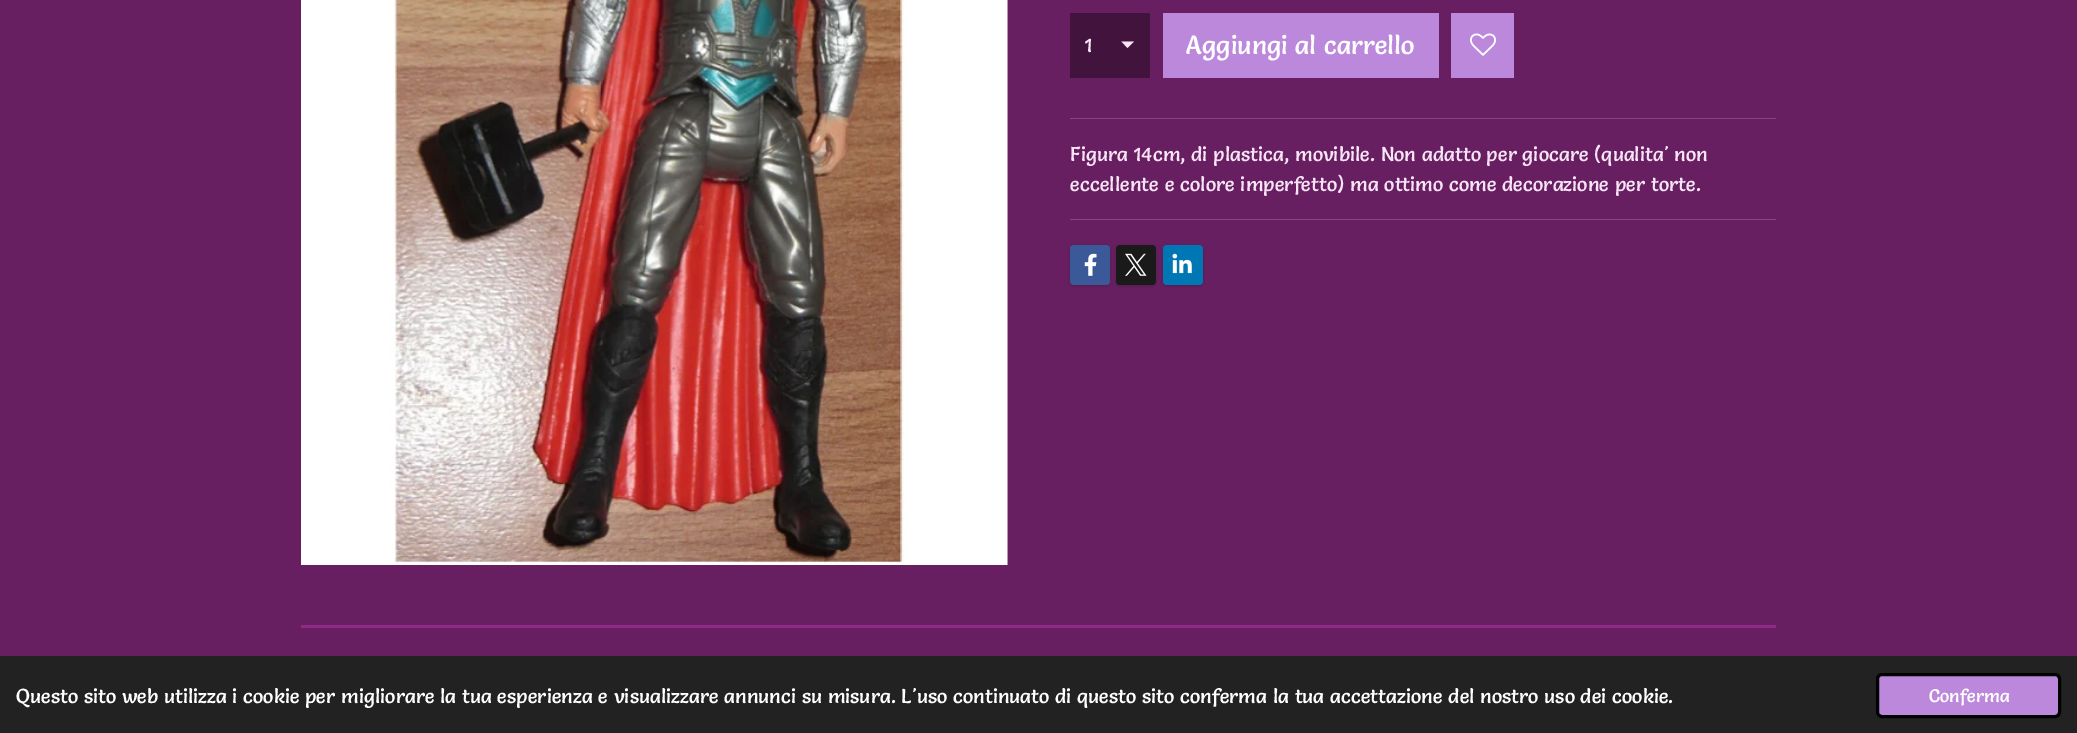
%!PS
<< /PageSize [2077 733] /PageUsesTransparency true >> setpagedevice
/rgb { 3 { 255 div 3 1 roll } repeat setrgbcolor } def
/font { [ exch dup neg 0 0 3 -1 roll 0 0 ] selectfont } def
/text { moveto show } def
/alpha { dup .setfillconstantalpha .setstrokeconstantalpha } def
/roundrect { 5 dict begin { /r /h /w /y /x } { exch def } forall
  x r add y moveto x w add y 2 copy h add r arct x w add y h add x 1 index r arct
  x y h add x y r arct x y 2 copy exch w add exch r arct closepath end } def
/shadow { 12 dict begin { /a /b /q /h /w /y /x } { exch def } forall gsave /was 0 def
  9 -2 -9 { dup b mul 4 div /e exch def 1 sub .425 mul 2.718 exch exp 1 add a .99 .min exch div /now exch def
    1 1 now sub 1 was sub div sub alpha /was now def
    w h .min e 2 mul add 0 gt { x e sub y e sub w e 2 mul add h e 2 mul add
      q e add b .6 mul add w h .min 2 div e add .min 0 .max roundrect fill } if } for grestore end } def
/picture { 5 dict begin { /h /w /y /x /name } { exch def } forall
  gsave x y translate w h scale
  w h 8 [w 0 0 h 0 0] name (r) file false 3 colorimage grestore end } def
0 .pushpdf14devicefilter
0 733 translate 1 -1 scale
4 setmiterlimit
104 31 98 rgb
0 0 2077 733 rectfill
(img_01.rgb) 301 0 707 565 picture
65 19 61 rgb
1070 13 80 65 rectfill
247 228 245 rgb
1127.5 48 moveto -6 -6.5 rlineto 12.5 0 rlineto closepath fill
187 136 220 rgb
1163 13 276 65 rectfill
1451 13 63 65 rectfill
(img_02.rgb) 1470 33 26 23 picture
133 70 127 rgb
1070 118 706 1 rectfill
1070 219 706 1 rectfill
0 0 0 rgb
1070 246 40 40 4 2 0.2 shadow
59 89 152 rgb
1070 245 40 40 4 roundrect fill
(img_03.rgb) 1084 253 13 23 picture
0 0 0 rgb
1116 246 40 40 4 2 0.2 shadow
26 26 26 rgb
1116 245 40 40 4 roundrect fill
(img_04.rgb) 1125 253 22 23 picture
0 0 0 rgb
1163 246 40 40 4 2 0.2 shadow
0 119 181 rgb
1163 245 40 40 4 roundrect fill
(img_05.rgb) 1172 253 20 21 picture
143 43 135 rgb
301 625 1475 3 rectfill
34 34 34 rgb
0 656 2077 77 rectfill
187 136 220 rgb
1877.5 674.5 182 42 4.5 roundrect gsave fill grestore
0 0 0 rgb
3 setlinewidth
stroke
/Salsa-Regular 20 font
247 228 245 rgb
(1) 1084 52 text
/Salsa-Regular 26 font
255 255 255 rgb
(Aggiungi al carrello) 1186 54 text
/Salsa-Regular 20 font
247 228 245 rgb
(Figura 14cm, di plastica, movibile. Non adatto per giocare \(qualita' non) 1070 161 text
(eccellente e colore imperfetto\) ma ottimo come decorazione per torte.) 1070 191 text
255 255 255 rgb
(Questo sito web utilizza i cookie per migliorare la tua esperienza e visualizzare annunci su misura. L'uso continuato di questo sito conferma la tua accettazione del nostro uso dei cookie.) 16 703 text
/Salsa-Regular 18 font
(Conferma) 1929 702 text
.poppdf14devicefilter showpage
